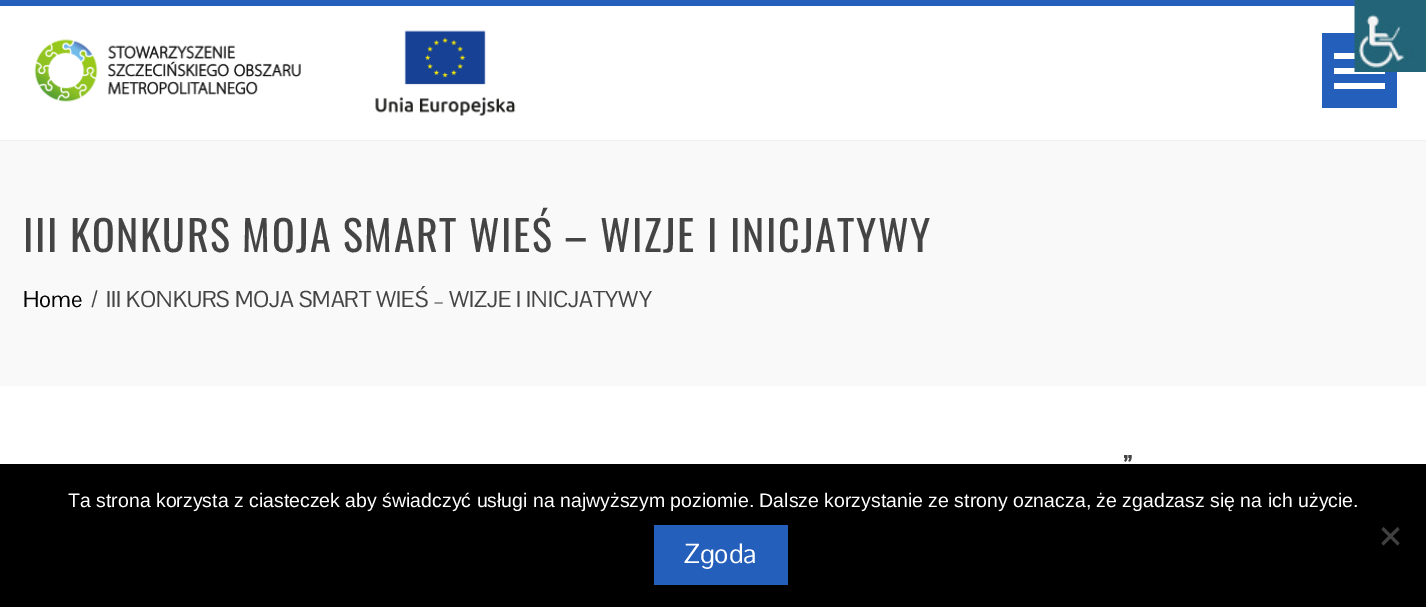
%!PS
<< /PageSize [1426 607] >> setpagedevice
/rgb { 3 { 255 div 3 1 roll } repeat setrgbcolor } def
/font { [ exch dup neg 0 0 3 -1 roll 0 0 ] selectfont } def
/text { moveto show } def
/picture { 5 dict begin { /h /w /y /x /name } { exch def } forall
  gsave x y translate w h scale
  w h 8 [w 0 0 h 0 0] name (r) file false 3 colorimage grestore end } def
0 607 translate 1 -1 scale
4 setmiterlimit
255 255 255 rgb
0 0 1426 607 rectfill
37 95 188 rgb
0 0 1355 6 rectfill
1322 33 75 75 rectfill
255 255 255 rgb
1334 53 21 6 rectfill
1334 68 51 6 rectfill
(img_01.rgb) 1354 0 72 72 picture
241 241 241 rgb
0 140 1426 1 rectfill
(img_02.rgb) 34 30 482 86 picture
255 255 255 rgb
1334 83 51 6 rectfill
249 249 249 rgb
0 141 1426 245 rectfill
0 0 0 rgb
0 464 1426 143 rectfill
64 64 64 rgb
1397.5 527 moveto 2 2.5 rlineto -16 16 rlineto -2 -2.5 rlineto closepath fill
1381.5 529.5 moveto 2 -2.5 rlineto 16 16 rlineto -2 2.5 rlineto closepath fill
37 95 188 rgb
654 525 134 60 rectfill
/Oswald-Regular 42 font
68 68 68 rgb
23 252 moveto 1.5 0 (III KONKURS MOJA SMART WIEŚ – WIZJE I INICJATYWY) ashow
/PontanoSans-Regular 22.5 font
0 0 0 rgb
(Home) 23 307 text
68 68 68 rgb
(/) 91 307 text
(III KONKURS MOJA SMART WIEŚ – WIZJE I INICJATYWY) 106 307 text
/PontanoSans-Bold 27 font
(”) 1123 475 text
/LiberationSans-Regular 19.5 font
255 255 255 rgb
(Ta strona korzysta z ciasteczek aby świadczyć usługi na najwyższym poziomie. Dalsze korzystanie ze strony oznacza, że zgadzasz się na ich użycie.) 68 507 text
/PontanoSans-Regular 27 font
(Zgoda) 684 563 text
showpage
